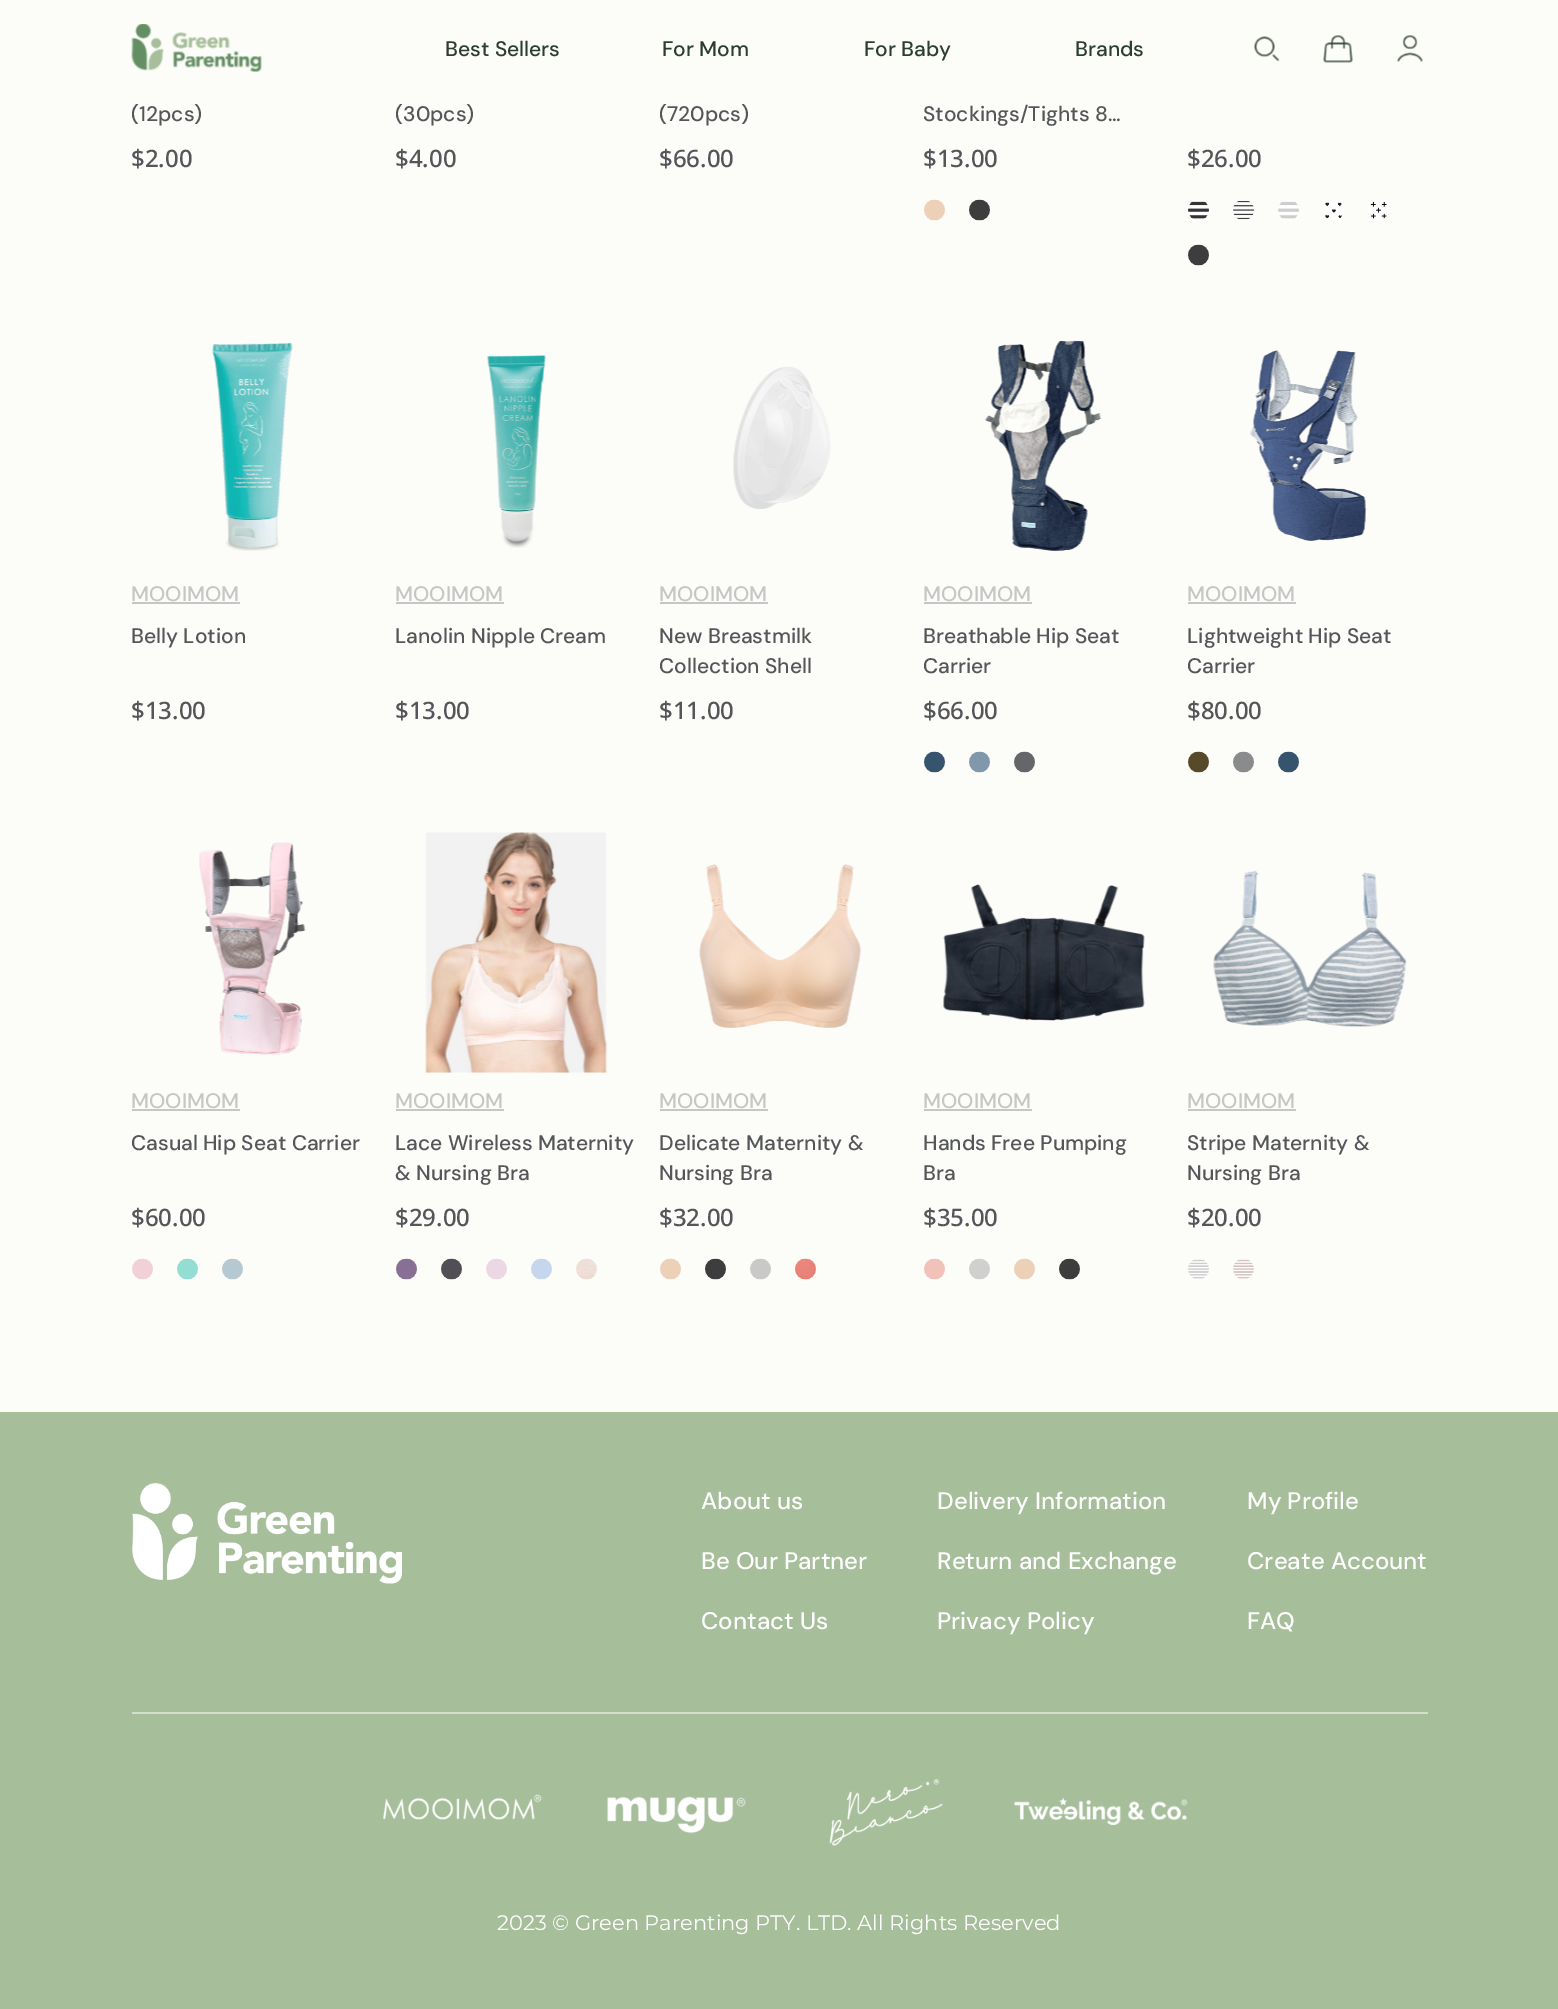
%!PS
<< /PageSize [1558 2009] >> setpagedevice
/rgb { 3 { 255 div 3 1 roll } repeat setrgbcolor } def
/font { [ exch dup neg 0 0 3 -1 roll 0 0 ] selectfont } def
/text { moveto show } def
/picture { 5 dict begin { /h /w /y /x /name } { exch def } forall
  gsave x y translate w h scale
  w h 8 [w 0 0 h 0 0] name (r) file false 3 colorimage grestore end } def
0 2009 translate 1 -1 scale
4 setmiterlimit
252 252 248 rgb
0 0 1558 2009 rectfill
(img_01.rgb) 131 24 131 48 picture
(img_02.rgb) 1254 36 26 26 picture
(img_03.rgb) 1323 35 30 28 picture
(img_04.rgb) 1397 35 26 27 picture
(img_05.rgb) 924 199 21 22 picture
(img_06.rgb) 969 199 21 22 picture
(img_07.rgb) 1188 200 21 20 picture
(img_08.rgb) 1233 201 21 19 picture
(img_09.rgb) 1278 200 21 20 picture
(img_10.rgb) 1323 200 21 20 picture
(img_11.rgb) 1368 200 21 20 picture
(img_06.rgb) 1188 244 21 22 picture
(img_12.rgb) 212 343 81 208 picture
198 198 198 rgb
132 602 108 2 rectfill
(img_13.rgb) 487 355 59 193 picture
396 602 108 2 rectfill
(img_14.rgb) 733 367 98 142 picture
660 602 108 2 rectfill
(img_15.rgb) 985 340 116 211 picture
924 602 108 2 rectfill
(img_16.rgb) 924 751 21 22 picture
(img_17.rgb) 969 751 21 22 picture
(img_18.rgb) 1014 751 21 22 picture
(img_19.rgb) 1250 350 117 191 picture
1188 602 108 2 rectfill
(img_20.rgb) 1188 751 21 22 picture
(img_21.rgb) 1233 751 21 22 picture
(img_16.rgb) 1278 751 21 22 picture
(img_22.rgb) 199 842 107 213 picture
132 1109 108 2 rectfill
(img_23.rgb) 132 1258 21 22 picture
(img_24.rgb) 177 1258 21 22 picture
(img_25.rgb) 222 1258 21 22 picture
(img_26.rgb) 425 832 182 241 picture
396 1109 108 2 rectfill
(img_27.rgb) 396 1258 21 22 picture
(img_28.rgb) 441 1258 21 22 picture
(img_29.rgb) 486 1258 21 22 picture
(img_30.rgb) 531 1258 21 22 picture
(img_31.rgb) 576 1258 21 22 picture
(img_32.rgb) 699 864 162 164 picture
660 1109 108 2 rectfill
(img_05.rgb) 660 1258 21 22 picture
(img_06.rgb) 705 1258 21 22 picture
(img_33.rgb) 750 1258 21 22 picture
(img_34.rgb) 795 1258 21 22 picture
(img_35.rgb) 943 884 202 137 picture
924 1109 108 2 rectfill
(img_36.rgb) 924 1258 21 22 picture
(img_37.rgb) 969 1258 21 22 picture
(img_05.rgb) 1014 1258 21 22 picture
(img_38.rgb) 1059 1258 21 22 picture
(img_39.rgb) 1213 870 194 157 picture
1188 1109 108 2 rectfill
(img_40.rgb) 1188 1259 21 20 picture
(img_41.rgb) 1233 1259 21 20 picture
166 190 154 rgb
0 1412 1558 597 rectfill
(img_42.rgb) 132 1483 270 101 picture
211 223 205 rgb
132 1712 1296 2 rectfill
(img_43.rgb) 383 1794 159 26 picture
(img_44.rgb) 607 1796 139 38 picture
(img_45.rgb) 829 1778 114 68 picture
(img_46.rgb) 1014 1797 174 29 picture
/DMSans-Medium 21 font
44 62 47 rgb
(Best Sellers) 445 56 text
(For Mom) 662 56 text
(For Baby) 864 56 text
(Brands) 1075 56 text
84 86 90 rgb
(\(12pcs\)) 131 121 text
/NotoSans-Medium 24 font
($2.00) 131 167 text
/DMSans-Medium 21 font
(\(30pcs\)) 395 121 text
/NotoSans-Medium 24 font
($4.00) 395 167 text
/DMSans-Medium 21 font
(\(720pcs\)) 659 121 text
/NotoSans-Medium 24 font
($66.00) 659 167 text
/DMSans-Medium 21 font
(Stockings/Tights 8…) 923 121 text
/NotoSans-Medium 24 font
($13.00) 923 167 text
($26.00) 1187 167 text
/DMSans-Medium 21 font
198 198 198 rgb
(MOOIMOM) 131 601 text
84 86 90 rgb
(Belly Lotion) 131 643 text
/NotoSans-Medium 24 font
($13.00) 131 719 text
/DMSans-Medium 21 font
198 198 198 rgb
(MOOIMOM) 395 601 text
84 86 90 rgb
(Lanolin Nipple Cream) 395 643 text
/NotoSans-Medium 24 font
($13.00) 395 719 text
/DMSans-Medium 21 font
198 198 198 rgb
(MOOIMOM) 659 601 text
84 86 90 rgb
(New Breastmilk) 659 643 text
(Collection Shell) 659 673 text
/NotoSans-Medium 24 font
($11.00) 659 719 text
/DMSans-Medium 21 font
198 198 198 rgb
(MOOIMOM) 923 601 text
84 86 90 rgb
(Breathable Hip Seat) 923 643 text
(Carrier) 923 673 text
/NotoSans-Medium 24 font
($66.00) 923 719 text
/DMSans-Medium 21 font
198 198 198 rgb
(MOOIMOM) 1187 601 text
84 86 90 rgb
(Lightweight Hip Seat) 1187 643 text
(Carrier) 1187 673 text
/NotoSans-Medium 24 font
($80.00) 1187 719 text
/DMSans-Medium 21 font
198 198 198 rgb
(MOOIMOM) 131 1108 text
84 86 90 rgb
(Casual Hip Seat Carrier) 131 1150 text
/NotoSans-Medium 24 font
($60.00) 131 1226 text
/DMSans-Medium 21 font
198 198 198 rgb
(MOOIMOM) 395 1108 text
84 86 90 rgb
(Lace Wireless Maternity) 395 1150 text
(& Nursing Bra) 395 1180 text
/NotoSans-Medium 24 font
($29.00) 395 1226 text
/DMSans-Medium 21 font
198 198 198 rgb
(MOOIMOM) 659 1108 text
84 86 90 rgb
(Delicate Maternity &) 659 1150 text
(Nursing Bra) 659 1180 text
/NotoSans-Medium 24 font
($32.00) 659 1226 text
/DMSans-Medium 21 font
198 198 198 rgb
(MOOIMOM) 923 1108 text
84 86 90 rgb
(Hands Free Pumping) 923 1150 text
(Bra) 923 1180 text
/NotoSans-Medium 24 font
($35.00) 923 1226 text
/DMSans-Medium 21 font
198 198 198 rgb
(MOOIMOM) 1187 1108 text
84 86 90 rgb
(Stripe Maternity &) 1187 1150 text
(Nursing Bra) 1187 1180 text
/NotoSans-Medium 24 font
($20.00) 1187 1226 text
/DMSans-Medium 24 font
255 255 255 rgb
(About us) 701 1509 text
(Be Our Partner) 701 1569 text
(Contact Us) 701 1629 text
(Delivery Information) 937 1509 text
(Return and Exchange) 937 1569 text
(Privacy Policy) 937 1629 text
(My Profile) 1247 1509 text
(Create Account) 1247 1569 text
(FAQ) 1247 1629 text
/Montserrat-Thin 21 font
(2023 © Green Parenting PTY. LTD. All Rights Reserved) 497 1930 text
showpage
